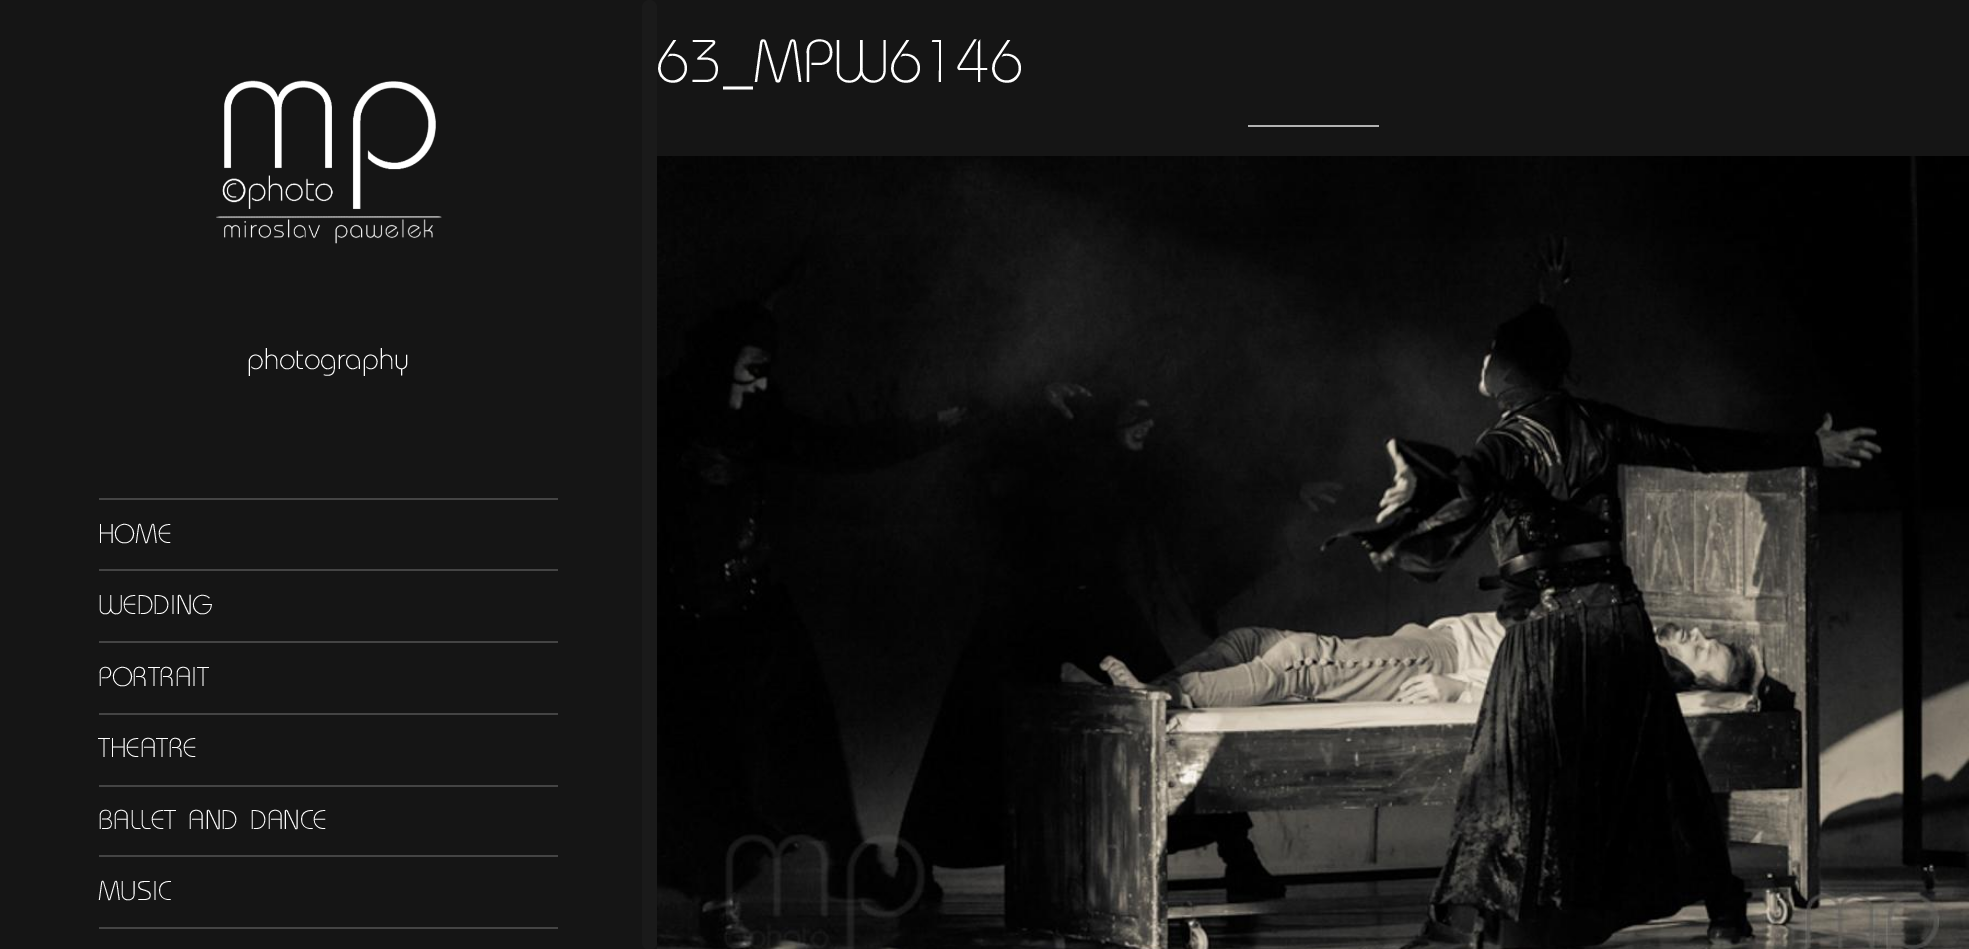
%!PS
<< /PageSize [1969 949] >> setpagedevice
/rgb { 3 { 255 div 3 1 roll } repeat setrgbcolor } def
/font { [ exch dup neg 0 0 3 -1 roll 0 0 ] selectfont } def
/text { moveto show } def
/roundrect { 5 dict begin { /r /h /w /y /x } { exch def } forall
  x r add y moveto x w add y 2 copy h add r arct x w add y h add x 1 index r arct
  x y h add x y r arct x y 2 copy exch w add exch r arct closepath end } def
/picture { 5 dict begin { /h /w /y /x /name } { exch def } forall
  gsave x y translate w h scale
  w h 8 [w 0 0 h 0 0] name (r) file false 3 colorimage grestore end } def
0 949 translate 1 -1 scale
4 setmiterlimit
21 21 21 rgb
0 0 1969 949 rectfill
178 178 178 rgb
1248 125 131 2 rectfill
(img_01.rgb) 657 156 1312 793 picture
(img_02.rgb) 216 80 226 164 picture
68 68 68 rgb
99 498 459 2 rectfill
99 569 459 2 rectfill
99 641 459 2 rectfill
99 713 459 2 rectfill
99 785 459 2 rectfill
99 855 459 2 rectfill
99 927 459 2 rectfill
26 26 26 rgb
642 0 15 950 7.5 roundrect fill
/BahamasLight-Light 60 font
255 255 255 rgb
(63_MPW6146) 656 82 text
/BahamasLight-Light 30 font
(photography) 247 369 text
/BahamasLight-Light 27 font
(HOME) 98 543 text
(WEDDING) 98 614 text
(PORTRAIT) 98 686 text
(THEATRE) 98 757 text
(BALLET AND DANCE) 98 829 text
(MUSIC) 98 900 text
showpage
